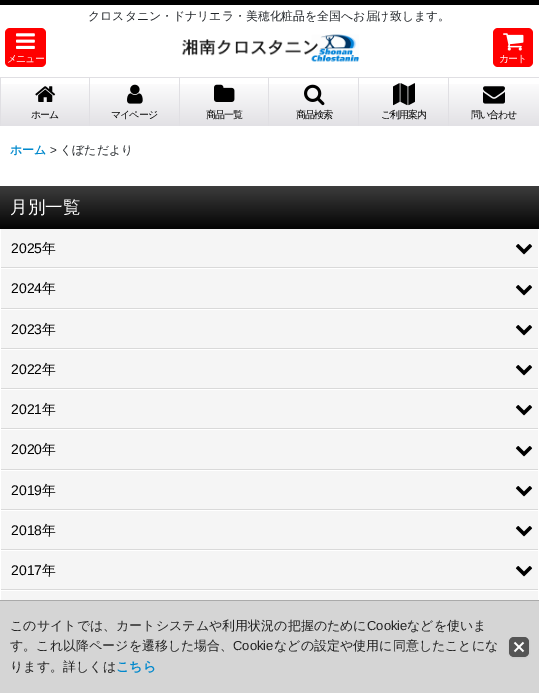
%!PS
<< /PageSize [539 693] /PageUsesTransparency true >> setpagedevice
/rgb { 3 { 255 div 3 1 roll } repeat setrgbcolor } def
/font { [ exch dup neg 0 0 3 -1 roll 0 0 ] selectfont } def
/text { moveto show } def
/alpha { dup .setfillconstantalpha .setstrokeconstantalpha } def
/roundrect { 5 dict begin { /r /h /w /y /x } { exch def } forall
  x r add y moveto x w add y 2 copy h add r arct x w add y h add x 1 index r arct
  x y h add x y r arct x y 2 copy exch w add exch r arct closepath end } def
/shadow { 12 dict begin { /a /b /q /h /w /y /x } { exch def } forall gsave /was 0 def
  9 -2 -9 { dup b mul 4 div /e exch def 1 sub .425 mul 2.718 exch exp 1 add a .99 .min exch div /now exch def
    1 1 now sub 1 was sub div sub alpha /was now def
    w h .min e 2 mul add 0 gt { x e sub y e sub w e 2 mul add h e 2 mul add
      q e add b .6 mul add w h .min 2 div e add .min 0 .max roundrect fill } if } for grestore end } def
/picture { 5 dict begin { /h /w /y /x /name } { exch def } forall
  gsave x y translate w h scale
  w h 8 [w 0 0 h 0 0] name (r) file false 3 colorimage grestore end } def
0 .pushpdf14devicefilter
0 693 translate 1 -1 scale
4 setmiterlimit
255 255 255 rgb
0 0 539 693 rectfill
0 0 0 rgb
0 0 539 5 rectfill
255 0 0 rgb
5 28 41 39 5 roundrect fill
(img_01.rgb) 16 33 19 16 picture
(img_02.rgb) 181 34 179 28 picture
493 28 40 39 5 roundrect fill
(img_03.rgb) 503 33 21 18 picture
224 223 227 rgb
0 77 539 1 rectfill
(img_04.rgb) 1 84 88 42 picture
89 78 1 48 rectfill
0 78 1 48 rectfill
(img_05.rgb) 35 86 21 16 picture
(img_06.rgb) 90 84 89 42 picture
179 78 1 48 rectfill
(img_07.rgb) 127 84 16 20 picture
(img_04.rgb) 180 84 88 42 picture
268 78 1 48 rectfill
(img_08.rgb) 214 84 21 18 picture
(img_06.rgb) 269 84 89 42 picture
358 78 1 48 rectfill
(img_09.rgb) 304 84 21 22 picture
(img_06.rgb) 359 84 89 42 picture
448 78 1 48 rectfill
(img_10.rgb) 393 83 22 23 picture
(img_11.rgb) 449 84 90 42 picture
(img_12.rgb) 483 86 22 18 picture
(img_13.rgb) 0 186 539 43 picture
245 245 245 rgb
1 229 537 38 rectfill
217 217 217 rgb
1 267 537 1 rectfill
(img_14.rgb) 515 244 18 11 picture
245 245 245 rgb
1 269 537 39 rectfill
217 217 217 rgb
1 308 537 1 rectfill
(img_14.rgb) 515 285 18 11 picture
245 245 245 rgb
1 310 537 38 rectfill
217 217 217 rgb
1 348 537 1 rectfill
(img_14.rgb) 515 325 18 11 picture
245 245 245 rgb
1 350 537 38 rectfill
217 217 217 rgb
1 388 537 1 rectfill
(img_14.rgb) 515 365 18 11 picture
245 245 245 rgb
1 390 537 38 rectfill
217 217 217 rgb
1 428 537 1 rectfill
(img_14.rgb) 515 405 18 11 picture
245 245 245 rgb
1 430 537 39 rectfill
217 217 217 rgb
1 469 537 1 rectfill
(img_14.rgb) 515 446 18 11 picture
245 245 245 rgb
1 471 537 38 rectfill
217 217 217 rgb
1 509 537 1 rectfill
(img_14.rgb) 515 486 18 11 picture
245 245 245 rgb
1 511 537 38 rectfill
217 217 217 rgb
1 549 537 1 rectfill
(img_14.rgb) 515 526 18 11 picture
245 245 245 rgb
1 551 537 38 rectfill
217 217 217 rgb
1 589 537 1 rectfill
(img_14.rgb) 515 566 18 11 picture
245 245 245 rgb
1 591 537 9 rectfill
213 213 213 rgb
0 601 539 92 rectfill
170 170 170 rgb
0 600 539 1 rectfill
0 0 0 rgb
509 638 20 20 5 1 0.05 shadow
(img_15.rgb) 509 637 20 20 picture
/WenQuanYiZenHei-Medium 11.9 font
33 37 41 rgb
(クロスタニン・ドナリエラ・美穂化粧品を全国へお届け致します。) 88 20 text
/WenQuanYiZenHei-Medium 10 font
255 255 255 rgb
7 62 moveto -1 0 (メニュー) ashow
499 62 moveto -1 0 (カート) ashow
0 0 0 rgb
31 118 moveto -1 0 (ホーム) ashow
111 118 moveto -1 0 (マイページ) ashow
206 118 moveto -1 0 (商品一覧) ashow
296 118 moveto -1 0 (商品検索) ashow
381 118 moveto -1 0 (ご利用案内) ashow
471 118 moveto -1 0 (問い合わせ) ashow
/WenQuanYiZenHei-Bold 11.9 font
0 136 204 rgb
(ホーム) 10 154 text
/LiberationSans-Regular 11.9 font
33 37 41 rgb
(>) 50 154 text
/WenQuanYiZenHei-Medium 11.9 font
(くぼただより) 60 154 text
/WenQuanYiZenHei-Medium 17.5 font
255 255 255 rgb
(月別一覧) 10 213 text
/LiberationSans-Regular 14 font
0 0 0 rgb
(2025) 11 253 text
/WenQuanYiZenHei-Medium 14 font
(年) 42 253 text
/LiberationSans-Regular 14 font
(2024) 11 293 text
/WenQuanYiZenHei-Medium 14 font
(年) 42 293 text
/LiberationSans-Regular 14 font
(2023) 11 334 text
/WenQuanYiZenHei-Medium 14 font
(年) 42 334 text
/LiberationSans-Regular 14 font
(2022) 11 374 text
/WenQuanYiZenHei-Medium 14 font
(年) 42 374 text
/LiberationSans-Regular 14 font
(2021) 11 414 text
/WenQuanYiZenHei-Medium 14 font
(年) 42 414 text
/LiberationSans-Regular 14 font
(2020) 11 454 text
/WenQuanYiZenHei-Medium 14 font
(年) 42 454 text
/LiberationSans-Regular 14 font
(2019) 11 495 text
/WenQuanYiZenHei-Medium 14 font
(年) 42 495 text
/LiberationSans-Regular 14 font
(2018) 11 535 text
/WenQuanYiZenHei-Medium 14 font
(年) 42 535 text
/LiberationSans-Regular 14 font
(2017) 11 575 text
/WenQuanYiZenHei-Medium 14 font
(年) 42 575 text
/WenQuanYiZenHei-Medium 13 font
34 34 34 rgb
(このサイトでは、カートシステムや利用状況の把握のために) 10 630 text
/LiberationSans-Regular 13 font
(Cookie) 367 630 text
/WenQuanYiZenHei-Medium 13 font
(などを使いま) 407 630 text
(す。これ以降ページを遷移した場合、) 10 650 text
/LiberationSans-Regular 13 font
(Cookie) 233 650 text
/WenQuanYiZenHei-Medium 13 font
(などの設定や使用に同意したことにな) 274 650 text
(ります。詳しくは) 10 671 text
/WenQuanYiZenHei-Bold 13 font
0 136 204 rgb
(こちら) 116 671 text
.poppdf14devicefilter showpage
